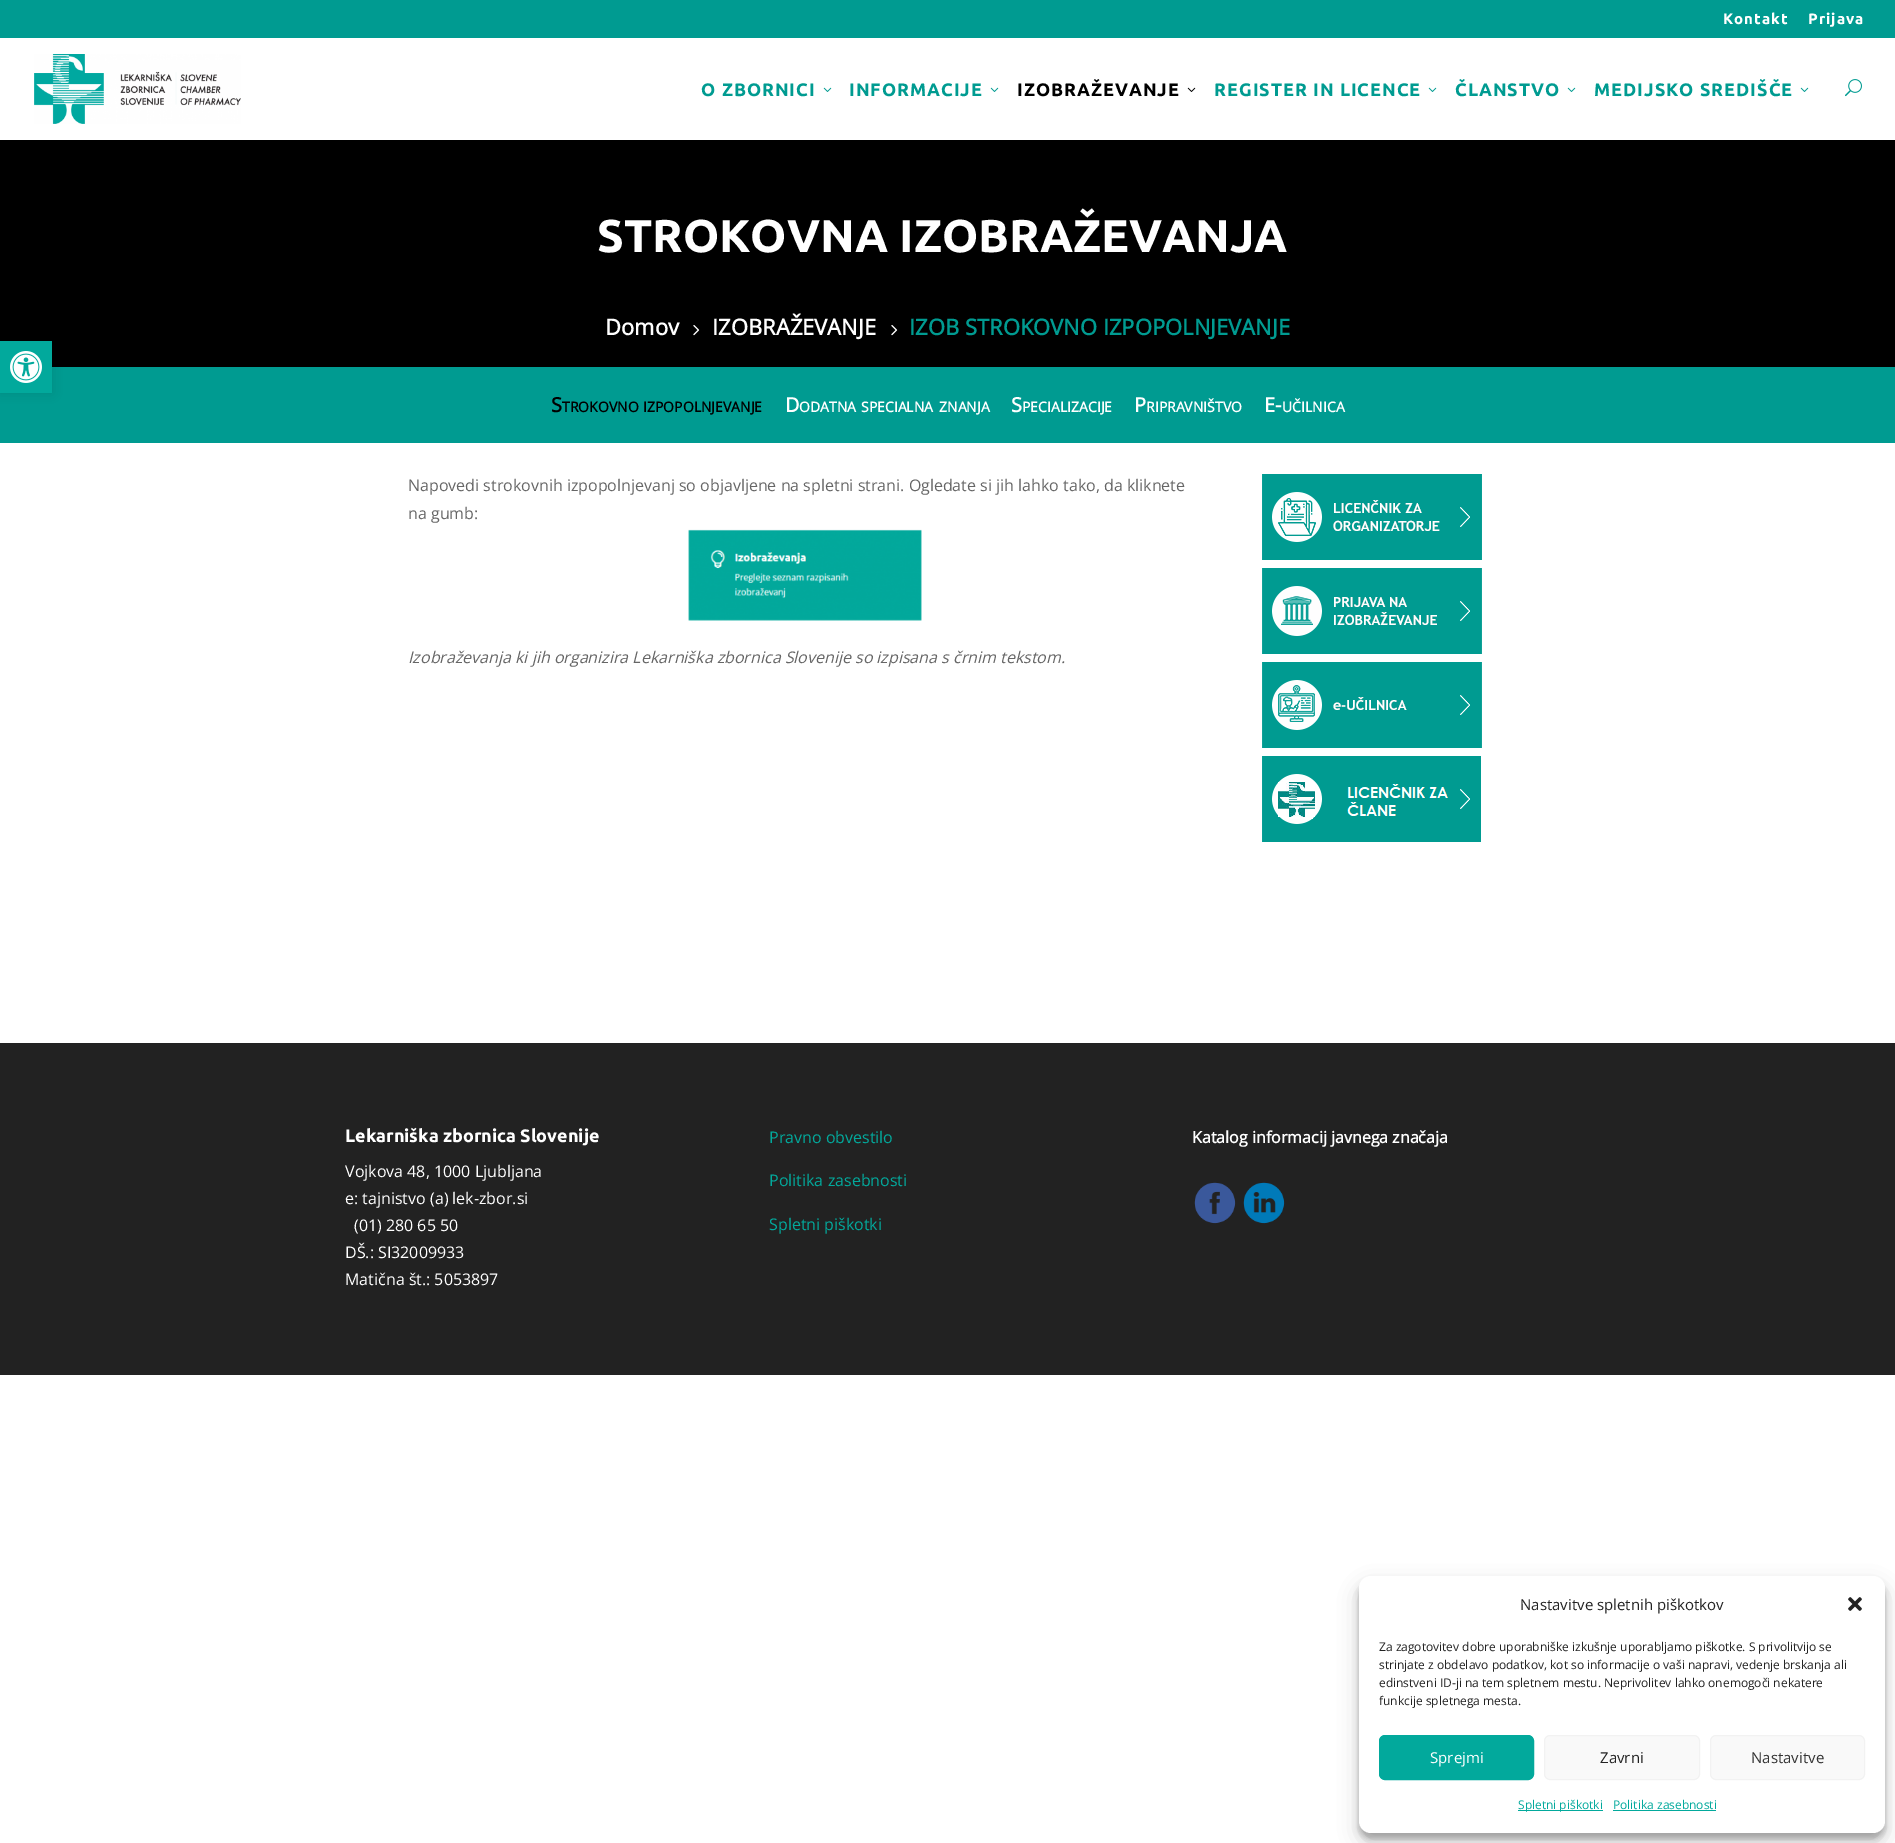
%!PS
<< /PageSize [1895 1843] /PageUsesTransparency true >> setpagedevice
/rgb { 3 { 255 div 3 1 roll } repeat setrgbcolor } def
/font { [ exch dup neg 0 0 3 -1 roll 0 0 ] selectfont } def
/text { moveto show } def
/alpha { dup .setfillconstantalpha .setstrokeconstantalpha } def
/roundrect { 5 dict begin { /r /h /w /y /x } { exch def } forall
  x r add y moveto x w add y 2 copy h add r arct x w add y h add x 1 index r arct
  x y h add x y r arct x y 2 copy exch w add exch r arct closepath end } def
/shadow { 12 dict begin { /a /b /q /h /w /y /x } { exch def } forall gsave /was 0 def
  9 -2 -9 { dup b mul 4 div /e exch def 1 sub .425 mul 2.718 exch exp 1 add a .99 .min exch div /now exch def
    1 1 now sub 1 was sub div sub alpha /was now def
    w h .min e 2 mul add 0 gt { x e sub y e sub w e 2 mul add h e 2 mul add
      q e add b .6 mul add w h .min 2 div e add .min 0 .max roundrect fill } if } for grestore end } def
/picture { 5 dict begin { /h /w /y /x /name } { exch def } forall
  gsave x y translate w h scale
  w h 8 [w 0 0 h 0 0] name (r) file false 3 colorimage grestore end } def
0 .pushpdf14devicefilter
0 1843 translate 1 -1 scale
4 setmiterlimit
255 255 255 rgb
0 0 1895 1843 rectfill
0 0 0 rgb
0 140 1895 227 rectfill
0 155 145 rgb
0 367 1895 76 rectfill
0 0 0 rgb
0 341 52 52 0 5 0.1 shadow
2 169 156 rgb
0 341 52 52 rectfill
(img_01.rgb) 10 351 32 32 picture
0 155 145 rgb
0 0 1895 38 rectfill
(img_02.rgb) 34 54 207 70 picture
(img_03.rgb) 823 87 9 5 picture
(img_03.rgb) 990 87 9 5 picture
(img_04.rgb) 1187 87 9 5 picture
(img_03.rgb) 1428 87 9 5 picture
(img_03.rgb) 1567 87 9 5 picture
(img_03.rgb) 1800 87 9 5 picture
(img_05.rgb) 1845 79 17 18 picture
(img_06.rgb) 693 325 7 11 picture
(img_06.rgb) 891 325 7 11 picture
(img_07.rgb) 688 529 234 92 picture
(img_08.rgb) 1262 474 220 86 picture
(img_09.rgb) 1262 568 220 86 picture
(img_10.rgb) 1262 662 220 86 picture
(img_11.rgb) 1262 756 219 86 picture
34 34 34 rgb
0 1043 1895 332 rectfill
(img_12.rgb) 1194 1182 42 42 picture
(img_13.rgb) 1243 1182 42 42 picture
0 0 0 rgb
1359 1582 526 257 12 3 0.23 shadow
1359 1586 526 257 12 10 0.19 shadow
255 255 255 rgb
1359 1576 526 257 12 roundrect fill
(img_14.rgb) 1848 1597 14 14 picture
2 169 156 rgb
1379.5 1735.5 154 44 5.5 roundrect gsave fill grestore
stroke
249 249 249 rgb
1544.5 1735.5 155 44 5.5 roundrect gsave fill grestore
242 242 242 rgb
stroke
249 249 249 rgb
1710.5 1735.5 154 44 5.5 roundrect gsave fill grestore
242 242 242 rgb
stroke
2 169 156 rgb
1518 1810 85 1 rectfill
1613 1810 103 1 rectfill
/Ubuntu-Bold 15 font
255 255 255 rgb
1723 24 moveto 1 0 (Kontakt) ashow
1808 24 moveto 1 0 (Prijava) ashow
/Ubuntu-Bold 18 font
0 155 145 rgb
701 96 moveto 1 0 (O ZBORNICI) ashow
849 96 moveto 1 0 (INFORMACIJE) ashow
0 0 0 rgb
1017 96 moveto 1 0 (IZOBRAŽEVANJE) ashow
0 155 145 rgb
1214 96 moveto 1 0 (REGISTER IN LICENCE) ashow
1455 96 moveto 1 0 (ČLANSTVO) ashow
1594 96 moveto 1 0 (MEDIJSKO SREDIŠČE) ashow
/Ubuntu-Bold 46 font
255 255 255 rgb
(STROKOVNA IZOBRAŽEVANJA) 597 252 text
/OpenSans-Bold 22 font
(Domov) 605 335 text
(IZOBRAŽEVANJE) 712 335 text
0 155 145 rgb
(IZOB STROKOVNO IZPOPOLNJEVANJE) 909 335 text
/OpenSans-Bold 20 font
0 0 0 rgb
(S) 551 412 text
/OpenSans-Bold 14 font
(TROKOVNO) 562 412 text
(IZPOPOLNJEVANJE) 643 412 text
/OpenSans-Bold 20 font
255 255 255 rgb
(D) 785 412 text
/OpenSans-Bold 14 font
(ODATNA) 799 412 text
(SPECIALNA) 861 412 text
(ZNANJA) 939 412 text
/OpenSans-Bold 20 font
(S) 1011 412 text
/OpenSans-Bold 14 font
(PECIALIZACIJE) 1022 412 text
/OpenSans-Bold 20 font
(P) 1134 412 text
/OpenSans-Bold 14 font
(RIPRAVNIŠTVO) 1146 412 text
/OpenSans-Bold 20 font
(E-) 1264 412 text
/OpenSans-Bold 14 font
(UČILNICA) 1282 412 text
/OpenSans-Regular 16 font
102 102 102 rgb
(Napovedi strokovnih izpopolnjevanj so objavljene na spletni strani. Ogledate si jih lahko tako, da kliknete) 408 491 text
(na gumb:) 408 519 text
/OpenSans-Italic 16 font
(Izobraževanja ki jih organizira Lekarniška zbornica Slovenije so izpisana s črnim tekstom.) 408 663 text
/Ubuntu-Bold 18 font
255 255 255 rgb
(Lekarniška zbornica Slovenije) 345 1142 text
/OpenSans-Regular 16 font
(Vojkova 48, 1000 Ljubljana) 345 1177 text
(e: tajnistvo \(a\) lek-zbor.si) 345 1204 text
(\(01\) 280 65 50) 354 1231 text
(DŠ.: SI32009933) 345 1258 text
(Matična št.: 5053897) 345 1285 text
2 169 156 rgb
(Pravno obvestilo) 769 1143 text
(Politika zasebnosti) 769 1186 text
(Spletni piškotki) 769 1230 text
/OpenSans-Bold 16 font
255 255 255 rgb
(Katalog informacij javnega značaja) 1192 1143 text
/OpenSans-Regular 15 font
34 34 34 rgb
(Nastavitve spletnih piškotkov) 1520 1610 text
/OpenSans-Regular 12 font
(Za zagotovitev dobre uporabniške izkušnje uporabljamo piškotke. S privolitvijo se) 1379 1651 text
(strinjate z obdelavo podatkov, kot so informacije o vaši napravi, vedenje brskanja ali) 1379 1669 text
(edinstveni ID-ji na tem spletnem mestu. Neprivolitev lahko onemogoči nekatere) 1379 1687 text
(funkcije spletnega mesta.) 1379 1705 text
/OpenSans-Regular 15 font
255 255 255 rgb
(Sprejmi) 1430 1763 text
34 34 34 rgb
(Zavrni) 1600 1763 text
51 51 51 rgb
(Nastavitve) 1751 1763 text
/OpenSans-Regular 12 font
2 169 156 rgb
(Spletni piškotki) 1518 1809 text
(Politika zasebnosti) 1613 1809 text
.poppdf14devicefilter showpage
